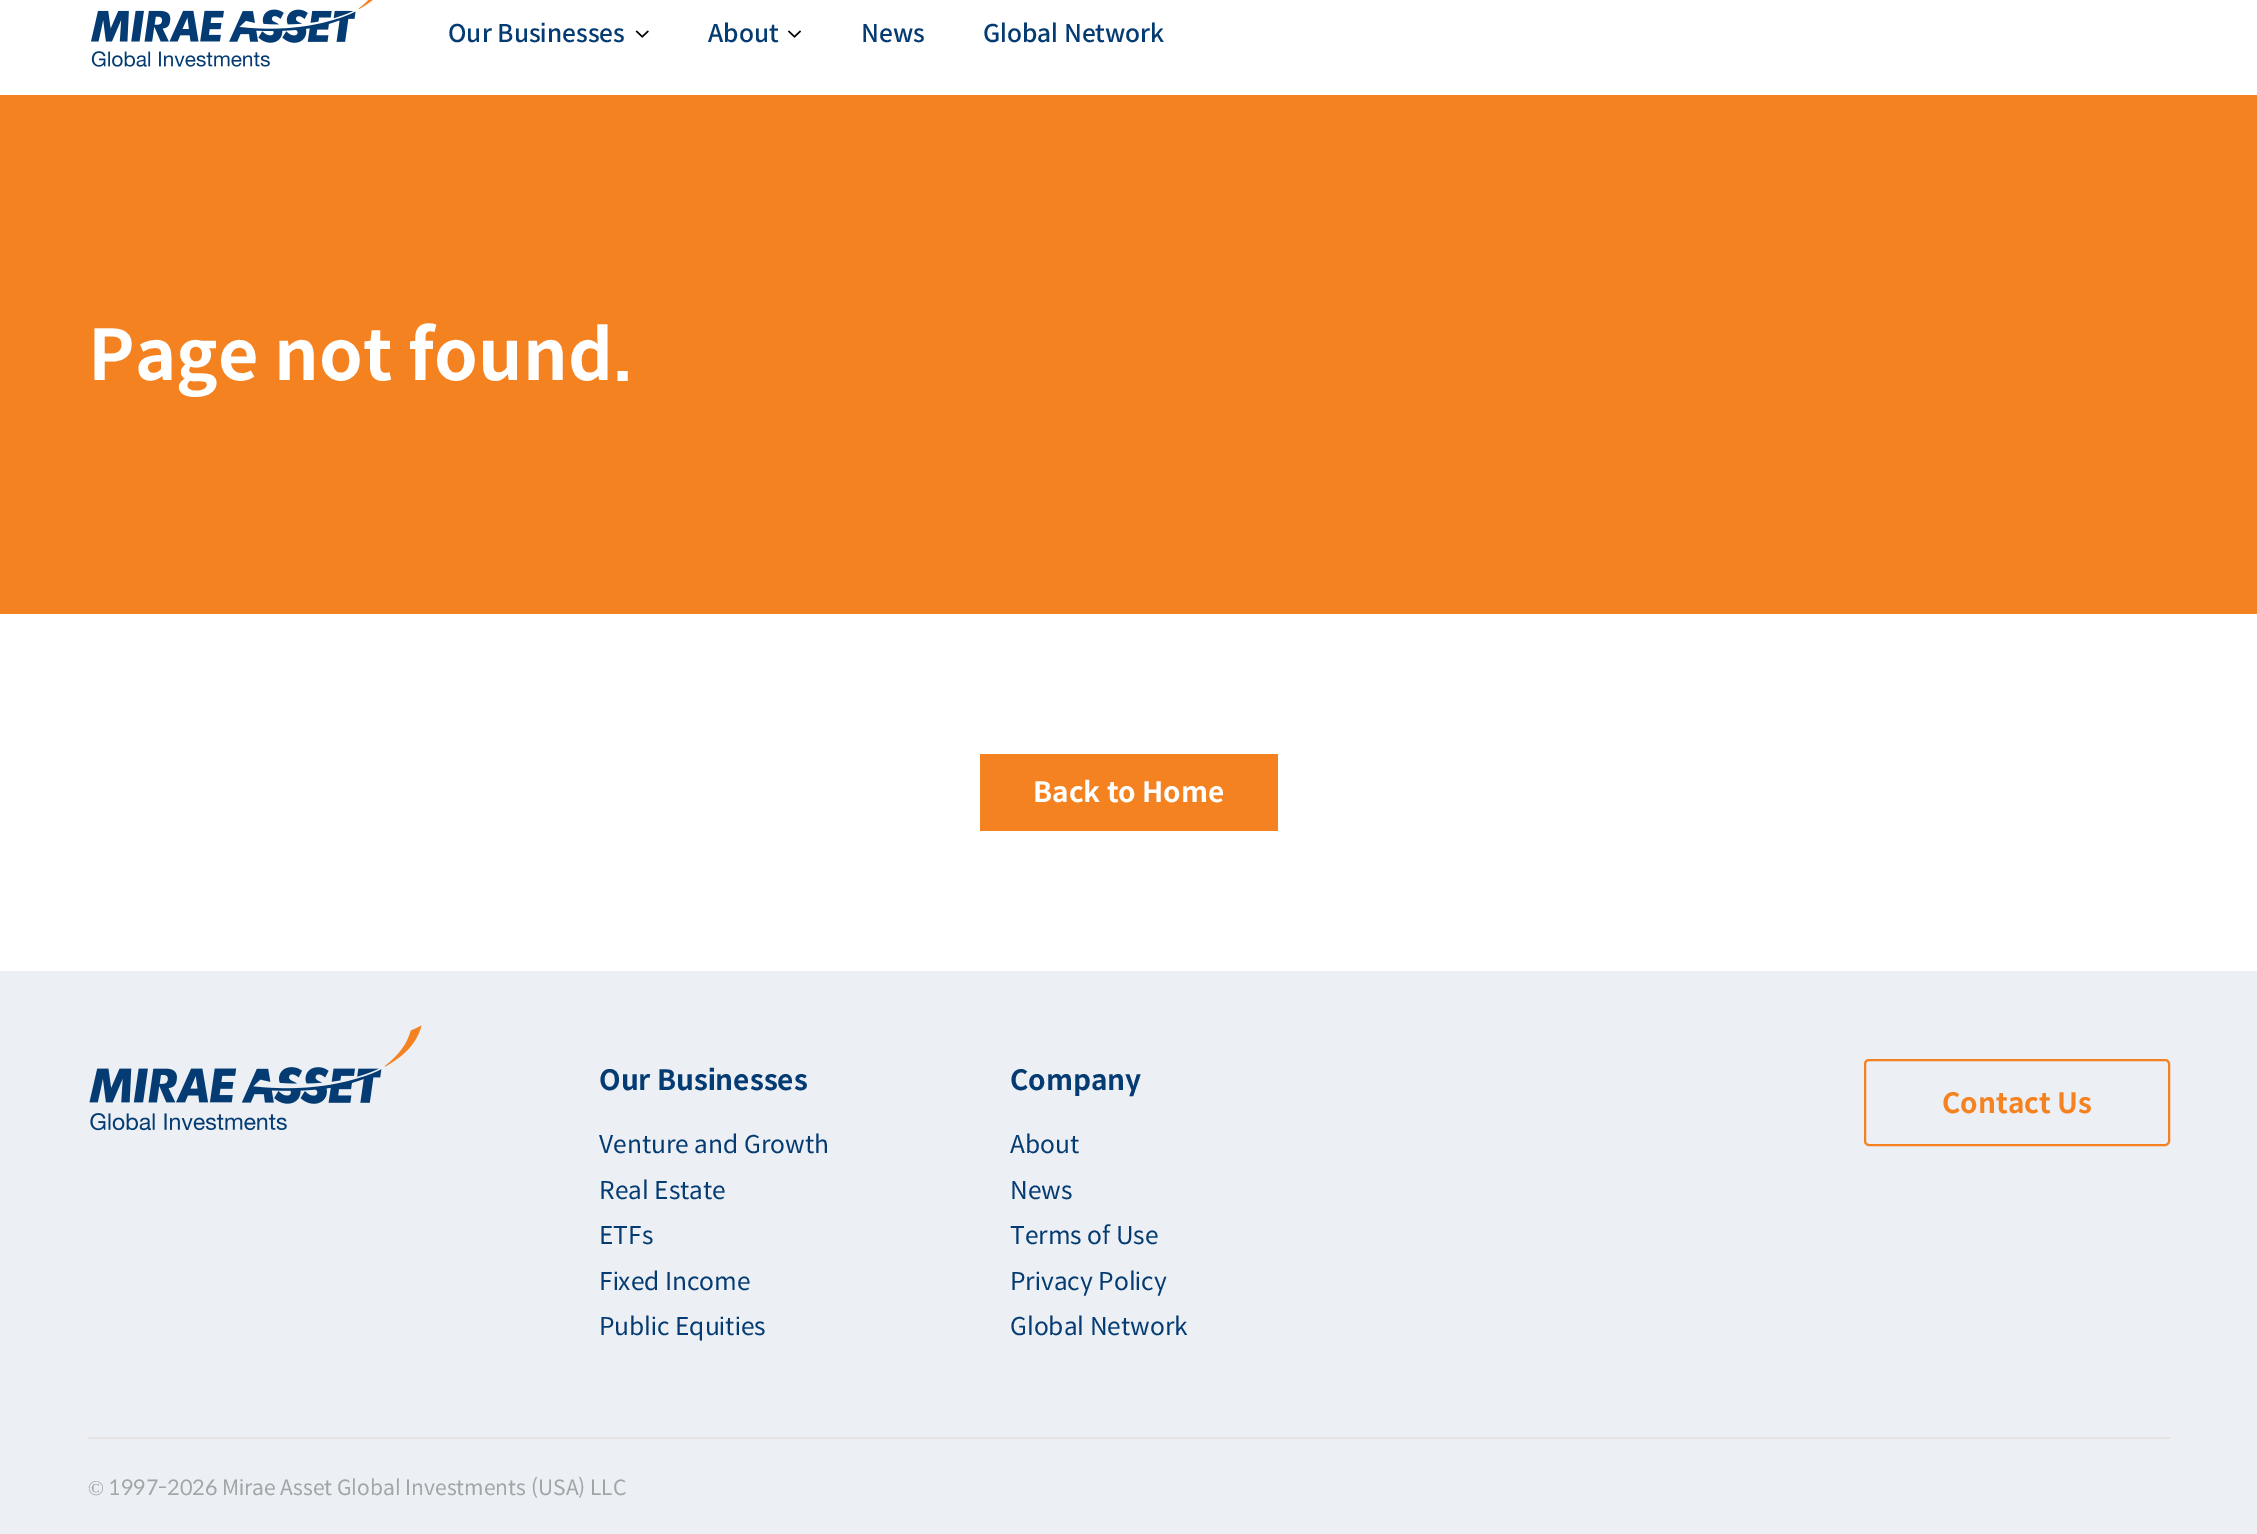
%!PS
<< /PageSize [2257 1534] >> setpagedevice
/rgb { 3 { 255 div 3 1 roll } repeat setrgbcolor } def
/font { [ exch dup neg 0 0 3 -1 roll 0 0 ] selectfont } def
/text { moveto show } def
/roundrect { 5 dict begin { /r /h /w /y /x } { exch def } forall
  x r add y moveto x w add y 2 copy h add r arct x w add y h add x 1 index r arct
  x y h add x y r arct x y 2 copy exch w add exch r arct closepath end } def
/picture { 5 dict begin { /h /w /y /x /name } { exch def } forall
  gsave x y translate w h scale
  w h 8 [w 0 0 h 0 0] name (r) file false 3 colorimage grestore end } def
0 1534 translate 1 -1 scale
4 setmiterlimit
255 255 255 rgb
0 0 2257 1534 rectfill
(img_01.rgb) 91 0 282 67 picture
(img_02.rgb) 635 30 14 8 picture
(img_03.rgb) 788 30 13 8 picture
245 130 32 rgb
0 95 2257 519 rectfill
980 754 298 77 rectfill
236 239 244 rgb
0 971 2257 563 rectfill
(img_04.rgb) 89 1025 333 106 picture
245 130 32 rgb
2 setlinewidth
1865 1060 304 85 4 roundrect stroke
229 228 225 rgb
88 1437 2082 2 rectfill
/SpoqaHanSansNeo-Medium 24.5 font
4 59 114 rgb
(Our Businesses) 448 42 text
(About) 708 42 text
(News) 861 42 text
(Global Network) 983 42 text
/SpoqaHanSansNeo-Bold 70 font
255 255 255 rgb
(Page not found.) 88 380 text
/SpoqaHanSansNeo-Bold 28 font
(Back to Home) 1033 802 text
4 59 114 rgb
(Our Businesses) 599 1090 text
/SpoqaHanSansNeo-Regular 24.5 font
(Venture and Growth) 599 1153 text
(Real Estate) 599 1199 text
(ETFs) 599 1244 text
(Fixed Income) 599 1290 text
(Public Equities) 599 1335 text
/SpoqaHanSansNeo-Bold 28 font
(Company) 1010 1090 text
/SpoqaHanSansNeo-Regular 24.5 font
(About) 1010 1153 text
(News) 1010 1199 text
(Terms of Use) 1010 1244 text
(Privacy Policy) 1010 1290 text
(Global Network) 1010 1335 text
/SpoqaHanSansNeo-Bold 28 font
245 130 32 rgb
(Contact Us) 1942 1113 text
/LiberationSerif-Regular 21 font
160 166 168 rgb
(©) 88 1495 text
/SpoqaHanSansNeo-Regular 21 font
(1997-2026 Mirae Asset Global Investments \(USA\) LLC) 108 1495 text
showpage
